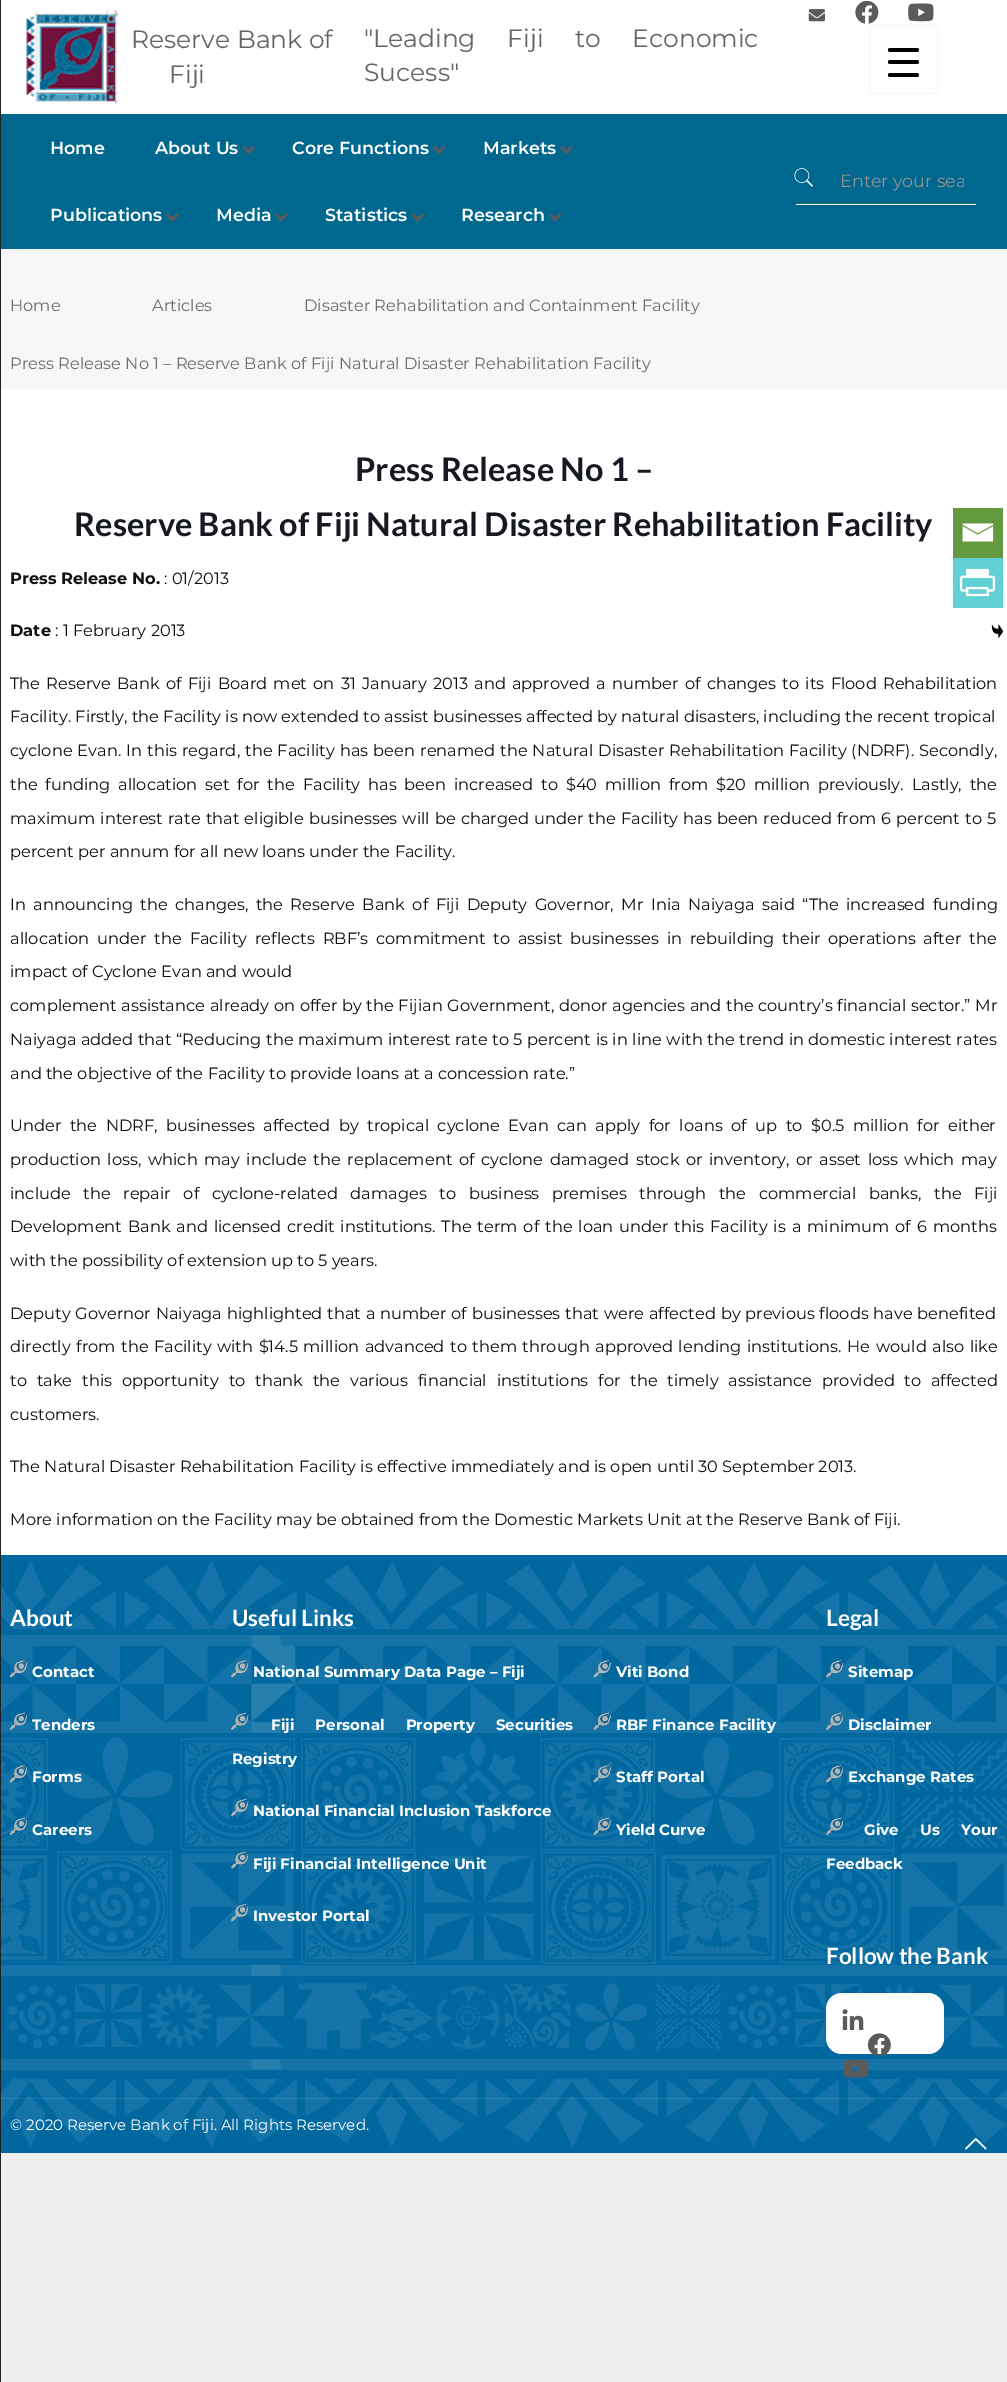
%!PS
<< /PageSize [1007 2382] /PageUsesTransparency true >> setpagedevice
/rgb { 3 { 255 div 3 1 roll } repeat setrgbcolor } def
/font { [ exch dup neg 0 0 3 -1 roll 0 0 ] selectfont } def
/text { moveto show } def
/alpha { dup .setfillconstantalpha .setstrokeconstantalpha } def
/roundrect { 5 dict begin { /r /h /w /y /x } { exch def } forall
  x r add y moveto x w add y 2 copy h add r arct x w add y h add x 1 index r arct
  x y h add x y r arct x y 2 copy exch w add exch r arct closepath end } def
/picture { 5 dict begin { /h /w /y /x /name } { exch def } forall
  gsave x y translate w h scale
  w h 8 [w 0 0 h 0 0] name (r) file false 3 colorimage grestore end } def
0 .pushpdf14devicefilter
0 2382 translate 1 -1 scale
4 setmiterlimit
238 238 238 rgb
0 0 1007 2382 rectfill
0 104 159 rgb
1 1555 1006 598 rectfill
(img_14.rgb) 1 1561 1006 586 picture
0.1 alpha
255 255 255 rgb
0 2098 1007 1 rectfill
1 alpha
33 33 33 rgb
0 0 1 2382 rectfill
255 255 255 rgb
1 0 1006 1555 rectfill
247 247 247 rgb
869.5 25.5 68 68 5.5 roundrect stroke
0 0 0 rgb
888 60 31 4 2 roundrect fill
888 48 31 4 2 roundrect fill
888 73 31 4 2 roundrect fill
(img_01.rgb) 808 9 17 13 picture
(img_02.rgb) 855 0 24 24 picture
(img_03.rgb) 908 3 26 19 picture
(img_04.rgb) 26 10 93 94 picture
0 103 143 rgb
1 114 1006 135 rectfill
(img_05.rgb) 242 146 13 8 picture
(img_05.rgb) 432 146 13 8 picture
(img_06.rgb) 560 146 13 8 picture
(img_07.rgb) 166 213 13 9 picture
(img_08.rgb) 275 213 13 9 picture
(img_07.rgb) 411 213 13 9 picture
(img_09.rgb) 548 213 14 9 picture
(img_10.rgb) 794 168 20 19 picture
255 255 255 rgb
796 204 180 1 rectfill
247 247 247 rgb
1 249 1006 140 rectfill
100 154 63 rgb
953 508 50 50 rectfill
(img_11.rgb) 962 523 32 19 picture
97 209 213 rgb
953 558 50 50 rectfill
(img_12.rgb) 959 568 37 29 picture
(img_13.rgb) 991 624 13 15 picture
(img_15.rgb) 10 1660 18 18 picture
(img_16.rgb) 10 1712 18 18 picture
(img_17.rgb) 10 1765 18 18 picture
(img_18.rgb) 10 1817 18 18 picture
(img_19.rgb) 231 1660 18 18 picture
(img_20.rgb) 231 1712 18 18 picture
(img_21.rgb) 231 1798 18 19 picture
(img_22.rgb) 231 1851 18 18 picture
(img_23.rgb) 231 1903 18 19 picture
(img_24.rgb) 593 1660 19 18 picture
(img_25.rgb) 593 1712 19 18 picture
(img_26.rgb) 593 1765 19 18 picture
(img_27.rgb) 593 1817 19 18 picture
(img_28.rgb) 826 1660 18 18 picture
(img_29.rgb) 826 1712 18 18 picture
(img_30.rgb) 826 1765 18 18 picture
(img_31.rgb) 826 1817 18 18 picture
255 255 255 rgb
826 1993 118 61 16 roundrect fill
(img_32.rgb) 842 2009 22 21 picture
(img_33.rgb) 867 2033 24 24 picture
(img_34.rgb) 843 2059 26 19 picture
(img_35.rgb) 965 2138 22 12 picture
/Montserrat-Regular 25 font
104 100 100 rgb
(Reserve Bank of) 131 48 text
(Fiji) 169 83 text
364 47 moveto 25 0 32 ("Leading Fiji to Economic) widthshow
(Sucess") 364 81 text
/Montserrat-SemiBold 17.5 font
255 255 255 rgb
(Home) 50 154 text
(About Us) 155 154 text
(Core Functions) 292 154 text
(Markets) 483 154 text
(Publications) 50 221 text
(Media) 216 221 text
(Statistics) 325 221 text
(Research) 461 221 text
gsave
840 169 124 22 rectclip
/Montserrat-Regular 17.5 font
146 146 146 rgb
(Enter your sea) 840 187 text
grestore
/Montserrat-Regular 16.25 font
108 108 108 rgb
(Home) 10 311 text
(Articles) 152 311 text
(Disaster Rehabilitation and Containment Facility) 304 311 text
(Press Release No 1 – Reserve Bank of Fiji Natural Disaster Rehabilitation Facility) 10 369 text
/Lato-Bold 32.5 font
22 25 34 rgb
(Press Release No 1 –) 355 481 text
(Reserve Bank of Fiji Natural Disaster Rehabilitation Facility) 74 536 text
/Montserrat-Bold 16.25 font
15 15 15 rgb
(Press Release No.) 10 584 text
/Montserrat-Regular 16.25 font
(: 01/2013) 164 584 text
/Montserrat-Bold 16.25 font
(Date) 10 636 text
/Montserrat-Regular 16.25 font
(: 1 February 2013) 55 636 text
10 689 moveto 2 0 32 (The Reserve Bank of Fiji Board met on 31 January 2013 and approved a number of changes to its Flood Rehabilitation) widthshow
(Facility. Firstly, the Facility is now extended to assist businesses affected by natural disasters, including the recent tropical) 10 722 text
10 756 moveto 0.75 0 32 (cyclone Evan. In this regard, the Facility has been renamed the Natural Disaster Rehabilitation Facility \(NDRF\). Secondly,) widthshow
10 790 moveto 3.6 0 32 (the funding allocation set for the Facility has been increased to $40 million from $20 million previously. Lastly, the) widthshow
10 824 moveto 0.8 0 32 (maximum interest rate that eligible businesses will be charged under the Facility has been reduced from 6 percent to 5) widthshow
(percent per annum for all new loans under the Facility.) 10 857 text
10 910 moveto 3.25 0 32 (In announcing the changes, the Reserve Bank of Fiji Deputy Governor, Mr Inia Naiyaga said “The increased funding) widthshow
10 944 moveto 3.6 0 32 (allocation under the Facility reflects RBF’s commitment to assist businesses in rebuilding their operations after the) widthshow
(impact of Cyclone Evan and would) 10 977 text
10 1011 moveto 0.4 0 32 (complement assistance already on offer by the Fijian Government, donor agencies and the country’s financial sector.” Mr) widthshow
10 1045 moveto 0.3 0 32 (Naiyaga added that “Reducing the maximum interest rate to 5 percent is in line with the trend in domestic interest rates) widthshow
(and the objective of the Facility to provide loans at a concession rate.”) 10 1079 text
10 1131 moveto 4.25 0 32 (Under the NDRF, businesses affected by tropical cyclone Evan can apply for loans of up to $0.5 million for either) widthshow
10 1165 moveto 2.25 0 32 (production loss, which may include the replacement of cyclone damaged stock or inventory, or asset loss which may) widthshow
10 1199 moveto 8.25 0 32 (include the repair of cyclone-related damages to business premises through the commercial banks, the Fiji) widthshow
10 1232 moveto 1.6 0 32 (Development Bank and licensed credit institutions. The term of the loan under this Facility is a minimum of 6 months) widthshow
(with the possibility of extension up to 5 years.) 10 1266 text
10 1319 moveto 0.5 0 32 (Deputy Governor Naiyaga highlighted that a number of businesses that were affected by previous floods have benefited) widthshow
10 1352 moveto 1.2 0 32 (directly from the Facility with $14.5 million advanced to them through approved lending institutions. He would also like) widthshow
10 1386 moveto 5.5 0 32 (to take this opportunity to thank the various financial institutions for the timely assistance provided to affected) widthshow
(customers.) 10 1420 text
(The Natural Disaster Rehabilitation Facility is effective immediately and is open until 30 September 2013.) 10 1472 text
(More information on the Facility may be obtained from the Domestic Markets Unit at the Reserve Bank of Fiji.) 10 1525 text
/Lato-Bold 22.5 font
255 255 255 rgb
(About) 10 1626 text
/Montserrat-Bold 15 font
(Contact) 32 1677 text
(Tenders) 32 1730 text
(Forms) 32 1782 text
(Careers) 32 1835 text
/Lato-Bold 22.5 font
(Useful Links) 232 1626 text
/Montserrat-Bold 15 font
(National Summary Data Page – Fiji) 253 1677 text
271 1730 moveto 17 0 32 (Fiji Personal Property Securities) widthshow
(Registry) 232 1764 text
(National Financial Inclusion Taskforce) 253 1816 text
(Fiji Financial Intelligence Unit) 253 1869 text
(Investor Portal) 253 1921 text
(Viti Bond) 616 1677 text
(RBF Finance Facility) 616 1730 text
(Staff Portal) 616 1782 text
(Yield Curve) 616 1835 text
/Lato-Bold 22.5 font
(Legal) 826 1626 text
/Montserrat-Bold 15 font
(Sitemap) 848 1677 text
(Disclaimer) 848 1730 text
(Exchange Rates) 848 1782 text
864 1835 moveto 17 0 32 (Give Us Your) widthshow
(Feedback) 826 1869 text
/Lato-Bold 22.5 font
(Follow the Bank) 826 1964 text
/Montserrat-Regular 15 font
(© 2020 Reserve Bank of Fiji. All Rights Reserved.) 10 2130 text
.poppdf14devicefilter showpage
